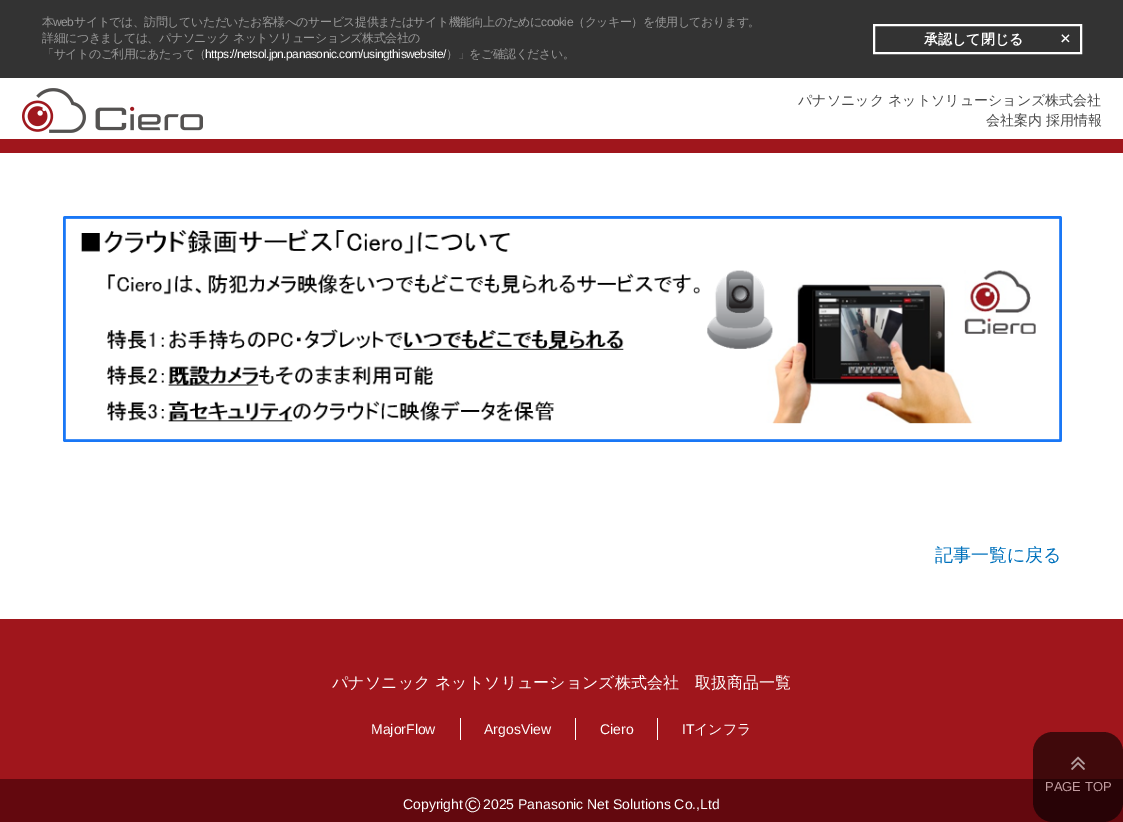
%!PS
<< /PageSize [1123 822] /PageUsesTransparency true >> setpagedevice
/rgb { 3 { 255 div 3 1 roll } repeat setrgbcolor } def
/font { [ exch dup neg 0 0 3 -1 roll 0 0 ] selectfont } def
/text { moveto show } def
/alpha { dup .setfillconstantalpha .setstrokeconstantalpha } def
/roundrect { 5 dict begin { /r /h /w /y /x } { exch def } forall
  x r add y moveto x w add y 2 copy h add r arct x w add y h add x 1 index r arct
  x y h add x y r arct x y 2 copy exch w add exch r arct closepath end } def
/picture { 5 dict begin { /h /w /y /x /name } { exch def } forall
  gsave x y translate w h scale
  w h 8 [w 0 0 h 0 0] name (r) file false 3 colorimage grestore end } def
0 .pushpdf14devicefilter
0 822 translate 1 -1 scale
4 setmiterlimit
255 255 255 rgb
0 0 1123 822 rectfill
160 22 28 rgb
0 139 1123 14 rectfill
51 51 51 rgb
0 0 1123 78 rectfill
255 255 255 rgb
2 setlinewidth
874 25 207 28 rectstroke
(img_01.rgb) 22 88 181 45 picture
(img_02.rgb) 63 216 999 226 picture
160 22 28 rgb
0 619 1123 160 rectfill
255 255 255 rgb
460 718 1 22 rectfill
575 718 1 22 rectfill
657 718 1 22 rectfill
99 8 14 rgb
0 779 1123 43 rectfill
0.6 alpha
0 0 0 rgb
1033 732 90 90 20 roundrect fill
1 alpha
(img_03.rgb) 1071 756 14 14 picture
/WenQuanYiZenHei-Medium 12 font
153 153 153 rgb
42 26 moveto -0.5 0 (本) ashow
/LiberationSans-Regular 12 font
53 26 moveto -0.5 0 (web) ashow
/WenQuanYiZenHei-Medium 12 font
74 26 moveto -0.5 0 (サイトでは、訪問していただいたお客様へのサービス提供またはサイト機能向上のために) ashow
/LiberationSans-Regular 12 font
541 26 moveto -0.5 0 (cookie) ashow
/WenQuanYiZenHei-Medium 12 font
573 26 moveto -0.5 0 (（クッキー）を使用しております。) ashow
42 42 moveto -0.5 0 (詳細につきましては、パナソニック ネットソリューションズ株式会社の) ashow
42 58 moveto -0.5 0 (「サイトのご利用にあたって（) ashow
/LiberationSans-Regular 12 font
255 255 255 rgb
205 58 moveto -0.5 0 (https://netsol.jpn.panasonic.com/usingthiswebsite/) ashow
/WenQuanYiZenHei-Medium 12 font
153 153 153 rgb
446 58 moveto -0.5 0 (）」をご確認ください。) ashow
/WenQuanYiZenHei-Bold 14 font
255 255 255 rgb
(承認して閉じる) 924 44 text
/DejaVuSansMono-Regular 18 font
(×) 1060 44 text
/WenQuanYiZenHei-Medium 14 font
74 74 74 rgb
(パナソニック ネットソリューションズ株式会社) 798 105 text
(会社案内) 986 125 text
(採用情報) 1046 125 text
/WenQuanYiZenHei-Medium 18 font
0 113 188 rgb
(記事一覧に戻る) 935 561 text
/WenQuanYiZenHei-Medium 16 font
255 255 255 rgb
(パナソニック ネットソリューションズ株式会社　取扱商品一覧) 332 688 text
/LiberationSans-Regular 14 font
(MajorFlow) 371 734 text
(ArgosView) 484 734 text
(Ciero) 600 734 text
(IT) 682 734 text
/WenQuanYiZenHei-Medium 14 font
(インフラ) 694 734 text
/LiberationSans-Regular 14 font
(Copyright) 403 809 text
/LiberationSans-Regular 21 font
(©) 465 812 text
/LiberationSans-Regular 14 font
(2025 Panasonic Net Solutions Co.,Ltd) 483 809 text
/LiberationSans-Regular 13 font
193 156 159 rgb
(PAGE TOP) 1045 791 text
.poppdf14devicefilter showpage
